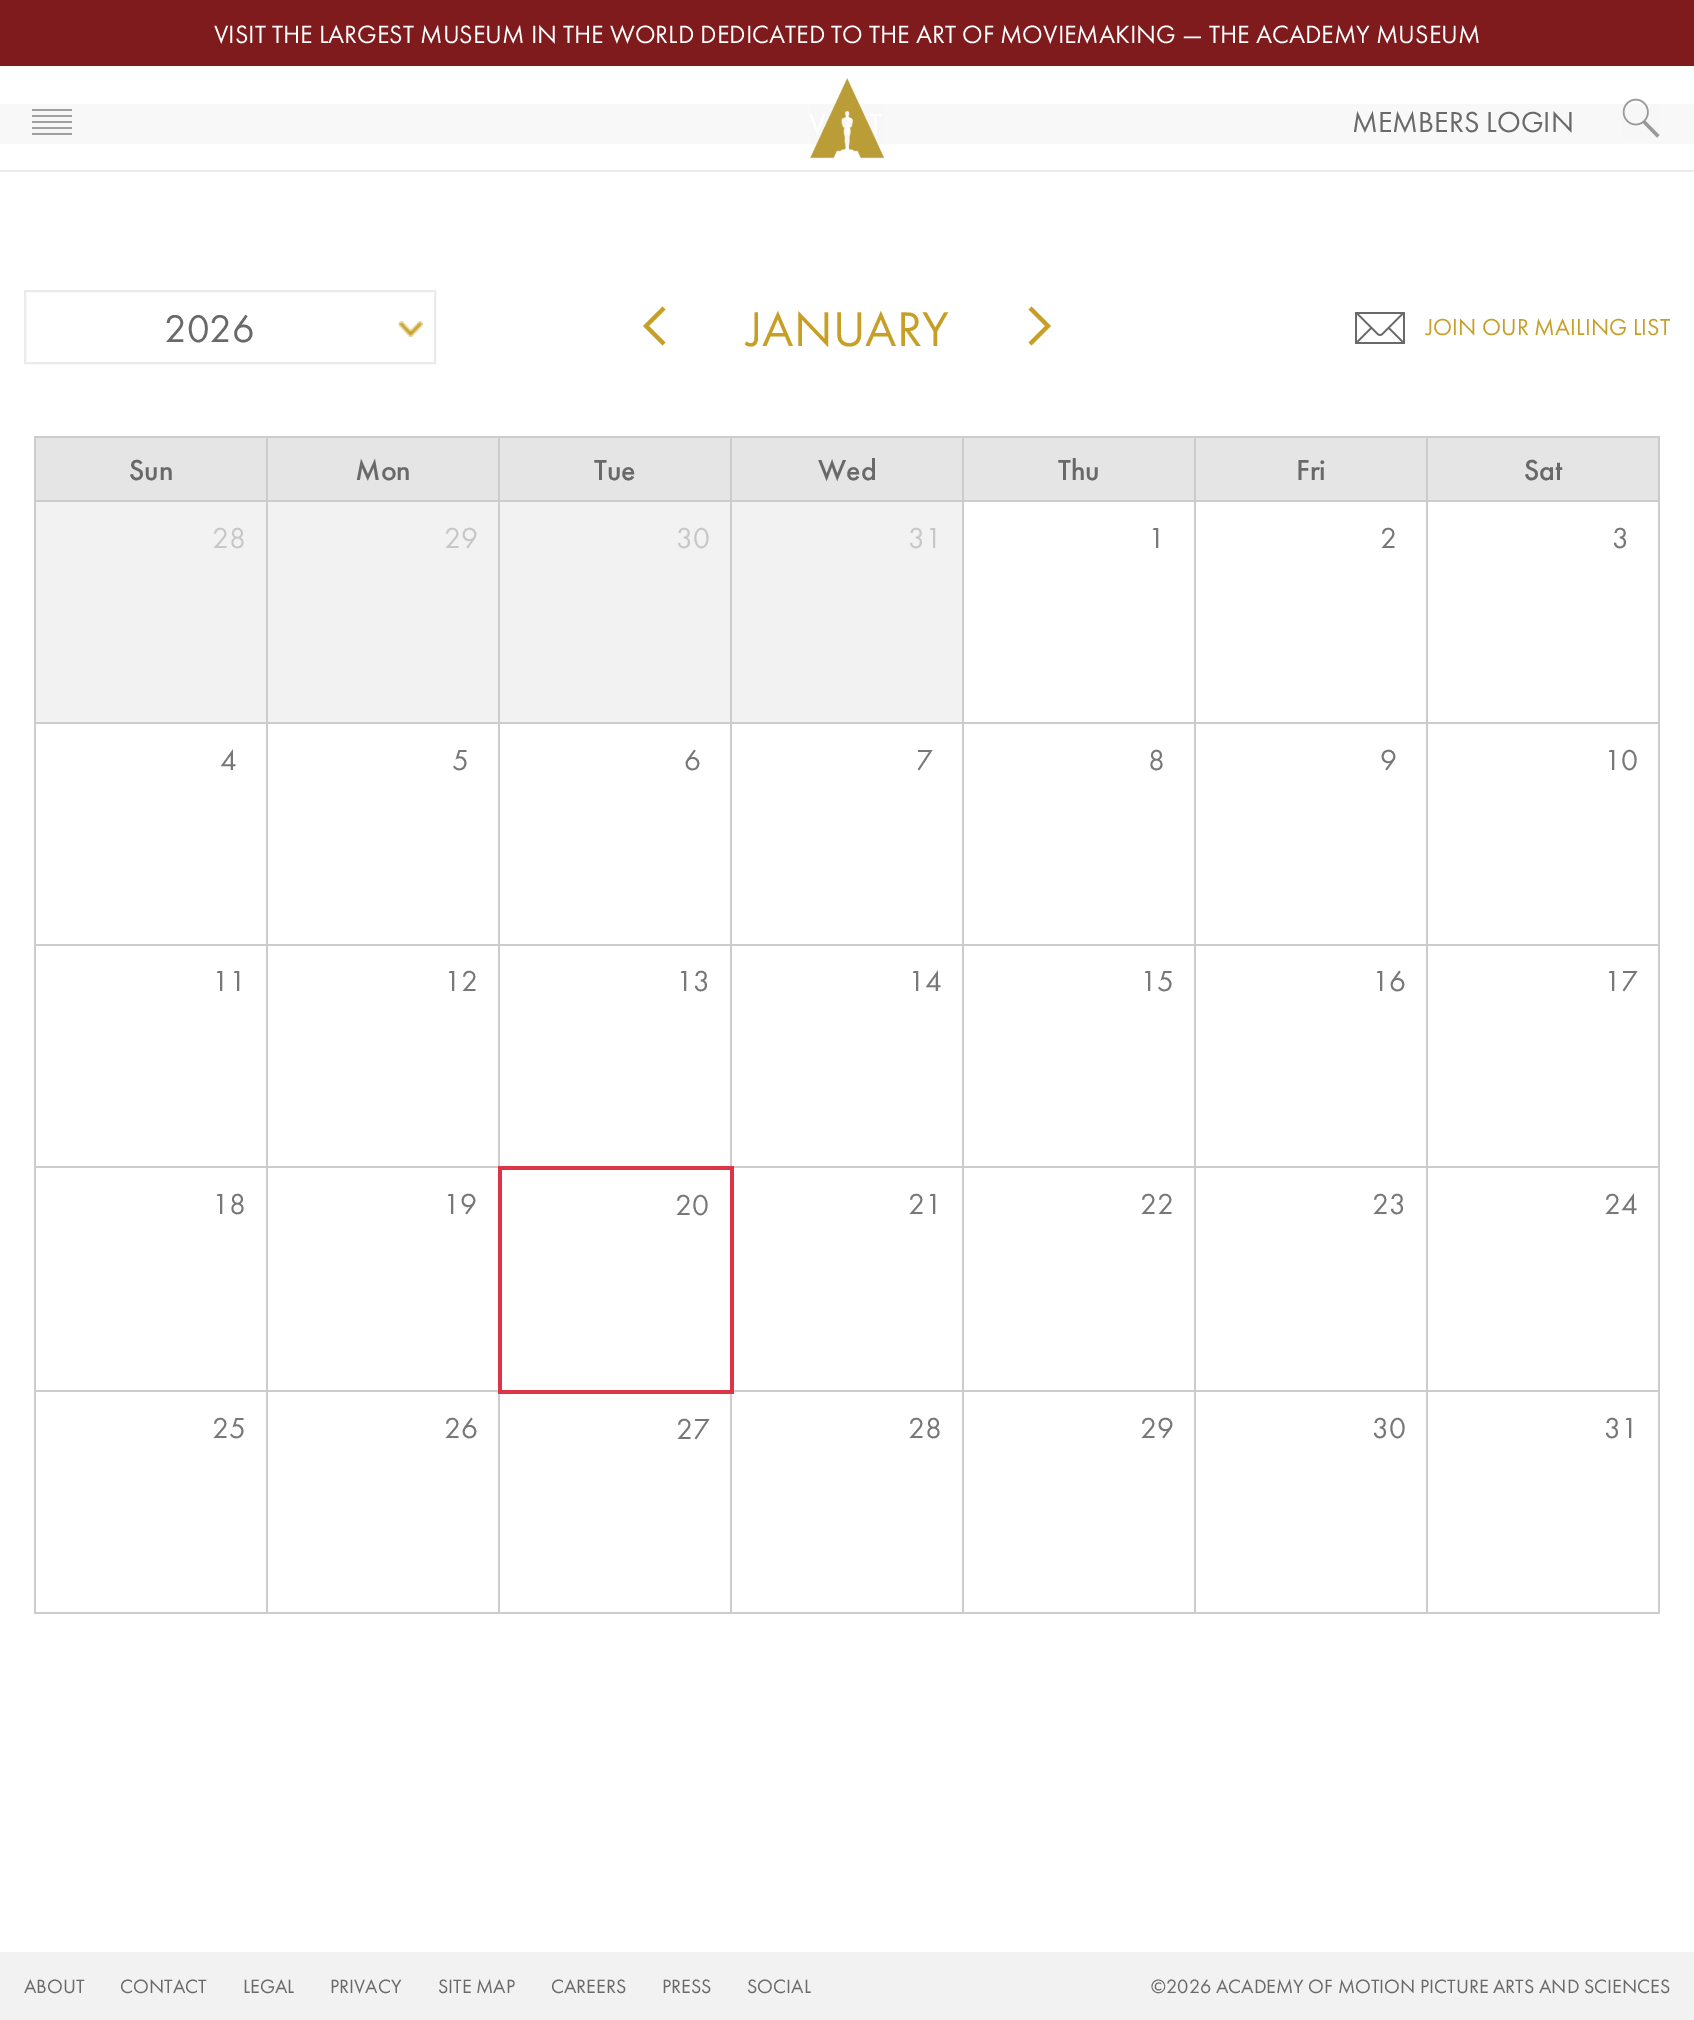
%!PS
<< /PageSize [1694 2020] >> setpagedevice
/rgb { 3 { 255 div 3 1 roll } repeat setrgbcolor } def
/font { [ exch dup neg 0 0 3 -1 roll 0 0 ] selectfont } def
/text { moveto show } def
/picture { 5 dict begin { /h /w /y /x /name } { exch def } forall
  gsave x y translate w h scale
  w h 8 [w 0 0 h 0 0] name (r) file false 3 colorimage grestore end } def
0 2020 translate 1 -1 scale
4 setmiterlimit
255 255 255 rgb
0 0 1694 2020 rectfill
128 27 29 rgb
0 0 1694 66 rectfill
248 248 248 rgb
0 104 1694 40 rectfill
(img_01.rgb) 32 109 40 26 picture
(img_02.rgb) 810 78 74 81 picture
(img_03.rgb) 1622 98 38 40 picture
235 235 235 rgb
0 170 1694 2 rectfill
2 setlinewidth
25 291 410 72 rectstroke
(img_04.rgb) 398 321 25 16 picture
199 159 39 rgb
665.5 309.5 moveto -16.5 16.5 rlineto 16.5 16.5 rlineto -3 3 rlineto -19.5 -19.5 rlineto 19.5 -19.5 rlineto closepath fill
1028.5 309.5 moveto 16.5 16.5 rlineto -16.5 16.5 rlineto 3 3 rlineto 19.5 -19.5 rlineto -19.5 -19.5 rlineto closepath fill
(img_05.rgb) 1355 312 50 32 picture
229 229 229 rgb
36 438 230 62 rectfill
204 204 204 rgb
1426 436 234 2 rectfill
1426 500 234 2 rectfill
1426 722 234 2 rectfill
1426 944 234 2 rectfill
1426 1166 234 2 rectfill
1426 1390 234 2 rectfill
1658 1458 2 156 rectfill
1426 1612 234 2 rectfill
1426 1458 2 156 rectfill
1426 1390 2 70 rectfill
1194 1390 234 2 rectfill
1426 1234 2 158 rectfill
1426 1166 2 70 rectfill
1194 1166 234 2 rectfill
1426 1010 2 158 rectfill
1426 944 2 68 rectfill
1194 944 234 2 rectfill
1426 788 2 158 rectfill
1426 722 2 68 rectfill
1194 722 234 2 rectfill
1426 566 2 158 rectfill
1426 500 2 68 rectfill
1194 500 234 2 rectfill
1426 436 2 66 rectfill
1194 436 234 2 rectfill
1194 1612 234 2 rectfill
1194 1458 2 156 rectfill
1194 1390 2 70 rectfill
962 1390 234 2 rectfill
1194 1234 2 158 rectfill
1194 1166 2 70 rectfill
962 1166 234 2 rectfill
1194 1010 2 158 rectfill
1194 944 2 68 rectfill
962 944 234 2 rectfill
1194 788 2 158 rectfill
1194 722 2 68 rectfill
962 722 234 2 rectfill
1194 566 2 158 rectfill
1194 500 2 68 rectfill
962 500 234 2 rectfill
1194 436 2 66 rectfill
962 436 234 2 rectfill
962 1612 234 2 rectfill
962 1458 2 156 rectfill
962 1390 2 70 rectfill
730 1390 234 2 rectfill
962 1234 2 158 rectfill
962 1166 2 70 rectfill
730 1166 234 2 rectfill
962 1010 2 158 rectfill
962 944 2 68 rectfill
730 944 234 2 rectfill
962 788 2 158 rectfill
962 722 2 68 rectfill
730 722 234 2 rectfill
962 566 2 158 rectfill
962 500 2 68 rectfill
730 500 234 2 rectfill
962 436 2 66 rectfill
730 436 234 2 rectfill
730 1010 2 158 rectfill
730 944 2 68 rectfill
498 944 234 2 rectfill
730 788 2 158 rectfill
730 722 2 68 rectfill
498 722 234 2 rectfill
730 566 2 158 rectfill
730 500 2 68 rectfill
498 500 234 2 rectfill
730 436 2 66 rectfill
498 436 234 2 rectfill
266 1166 234 2 rectfill
498 1010 2 158 rectfill
498 944 2 68 rectfill
266 944 234 2 rectfill
498 788 2 158 rectfill
498 722 2 68 rectfill
266 722 234 2 rectfill
498 566 2 158 rectfill
498 500 2 68 rectfill
266 500 234 2 rectfill
498 436 2 66 rectfill
266 436 234 2 rectfill
730 1612 234 2 rectfill
730 1458 2 156 rectfill
498 1612 234 2 rectfill
498 1390 2 224 rectfill
266 1390 234 2 rectfill
266 1612 234 2 rectfill
266 1458 2 156 rectfill
266 1390 2 70 rectfill
34 1390 234 2 rectfill
266 1234 2 158 rectfill
266 1166 2 70 rectfill
34 1166 234 2 rectfill
266 1010 2 158 rectfill
266 944 2 68 rectfill
34 944 234 2 rectfill
266 788 2 158 rectfill
266 722 2 68 rectfill
34 722 234 2 rectfill
266 566 2 158 rectfill
266 500 2 68 rectfill
34 500 234 2 rectfill
266 436 2 66 rectfill
34 436 234 2 rectfill
34 1612 234 2 rectfill
34 1458 2 156 rectfill
34 1234 2 226 rectfill
34 1010 2 226 rectfill
34 788 2 224 rectfill
34 566 2 224 rectfill
34 500 2 68 rectfill
34 436 2 66 rectfill
229 229 229 rgb
268 438 230 62 rectfill
500 438 230 62 rectfill
732 438 230 62 rectfill
964 438 230 62 rectfill
1196 438 230 62 rectfill
1428 438 230 62 rectfill
204 204 204 rgb
1658 1234 2 226 rectfill
1658 1010 2 226 rectfill
1658 788 2 224 rectfill
1658 566 2 224 rectfill
1658 500 2 68 rectfill
1658 436 2 66 rectfill
242 242 242 rgb
36 502 230 220 rectfill
268 502 230 220 rectfill
500 502 230 220 rectfill
732 502 230 220 rectfill
220 53 69 rgb
498 1166 236 4 rectfill
204 204 204 rgb
730 1390 2 70 rectfill
220 53 69 rgb
730 1234 4 160 rectfill
730 1166 4 72 rectfill
498 1390 236 4 rectfill
498 1234 4 160 rectfill
498 1166 4 72 rectfill
242 242 242 rgb
0 1952 1694 68 rectfill
/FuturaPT-Regular 26 font
255 255 255 rgb
(VISIT THE LARGEST MUSEUM IN THE WORLD DEDICATED TO THE ART OF MOVIEMAKING — THE ACADEMY MUSEUM) 214 43 text
/FuturaPT-Regular 30 font
105 105 105 rgb
(MEMBERS LOGIN) 1352 132 text
/FuturaPT-Regular 40 font
(2026) 164 342 text
/FuturaPT-Regular 50.5 font
199 159 39 rgb
(JANUARY) 747 346 text
/FuturaPT-Regular 24 font
(JOIN OUR MAILING LIST) 1426 335 text
/FuturaPT-Medium 30 font
105 105 105 rgb
(Sun) 129 480 text
(Mon) 355 480 text
(Tue) 594 480 text
(Wed) 818 480 text
(Thu) 1058 480 text
(Fri) 1296 480 text
(Sat) 1524 480 text
/FuturaPT-Regular 30 font
199 199 199 rgb
(28) 212 548 text
(29) 444 548 text
(30) 676 548 text
(31) 908 548 text
119 119 119 rgb
(1) 1148 548 text
(2) 1380 548 text
(3) 1612 548 text
(4) 220 770 text
(5) 452 770 text
(6) 684 770 text
(7) 916 770 text
(8) 1148 770 text
(9) 1380 770 text
(10) 1604 770 text
(11) 212 991 text
(12) 444 991 text
(13) 676 991 text
(14) 908 991 text
(15) 1140 991 text
(16) 1372 991 text
(17) 1604 991 text
(18) 212 1214 text
(19) 443 1214 text
(20) 675 1215 text
(21) 908 1214 text
(22) 1140 1214 text
(23) 1372 1214 text
(24) 1604 1214 text
(25) 212 1438 text
(26) 444 1438 text
(27) 676 1439 text
(28) 908 1438 text
(29) 1140 1438 text
(30) 1372 1438 text
(31) 1604 1438 text
/FuturaPT-Regular 20 font
105 105 105 rgb
(ABOUT) 24 1993 text
(CONTACT) 120 1993 text
(LEGAL) 243 1993 text
(PRIVACY) 330 1993 text
(SITE MAP) 438 1993 text
(CAREERS) 551 1993 text
(PRESS) 662 1993 text
(SOCIAL) 747 1993 text
(©2026 ACADEMY OF MOTION PICTURE ARTS AND SCIENCES) 1151 1993 text
showpage
